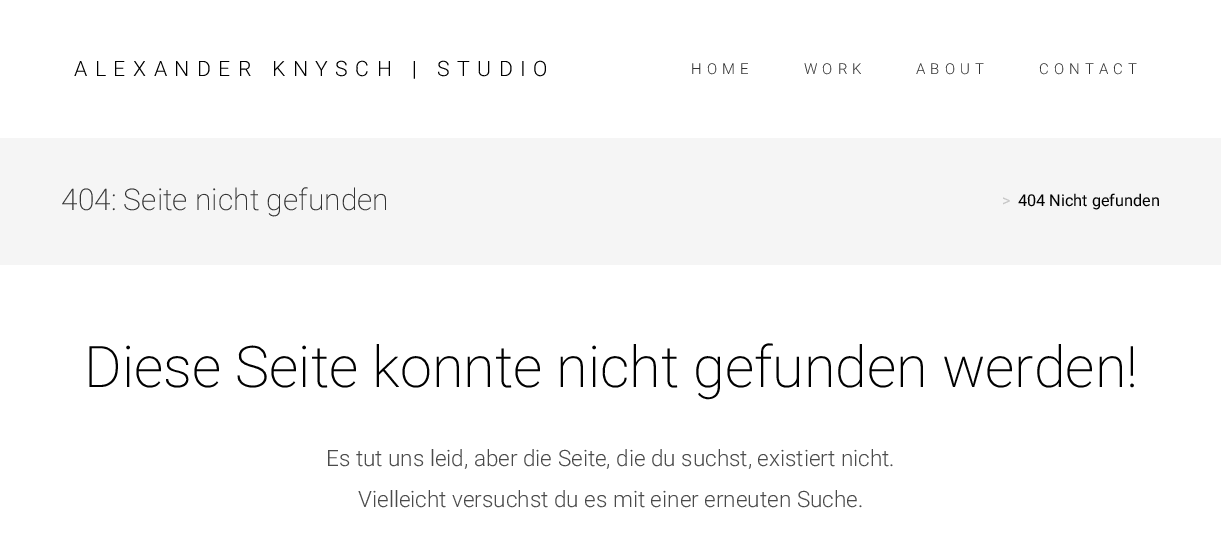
%!PS
<< /PageSize [1221 560] >> setpagedevice
/rgb { 3 { 255 div 3 1 roll } repeat setrgbcolor } def
/font { [ exch dup neg 0 0 3 -1 roll 0 0 ] selectfont } def
/text { moveto show } def
0 560 translate 1 -1 scale
4 setmiterlimit
255 255 255 rgb
0 0 1221 560 rectfill
245 245 245 rgb
0 138 1221 127 rectfill
/Roboto-Light 21.25 font
0 0 0 rgb
74 76 moveto 7.5 0 (ALEXANDER KNYSCH | STUDIO) ashow
/Roboto-Light 15 font
51 51 51 rgb
691 74 moveto 5 0 (HOME) ashow
804 74 moveto 5 0 (WORK) ashow
916 74 moveto 5 0 (ABOUT) ashow
1039 74 moveto 5 0 (CONTACT) ashow
/Roboto-ExtraLight 30 font
(404: Seite nicht gefunden) 61 210 text
/Roboto-Regular 16.25 font
198 198 198 rgb
(>) 1002 206 text
0 0 0 rgb
(404 Nicht gefunden) 1018 206 text
/Roboto-ExtraLight 57.5 font
(Diese Seite konnte nicht gefunden werden!) 84 387 text
/Roboto-Light 22.5 font
74 74 74 rgb
(Es tut uns leid, aber die Seite, die du suchst, existiert nicht.) 326 466 text
(Vielleicht versuchst du es mit einer erneuten Suche.) 358 507 text
showpage
